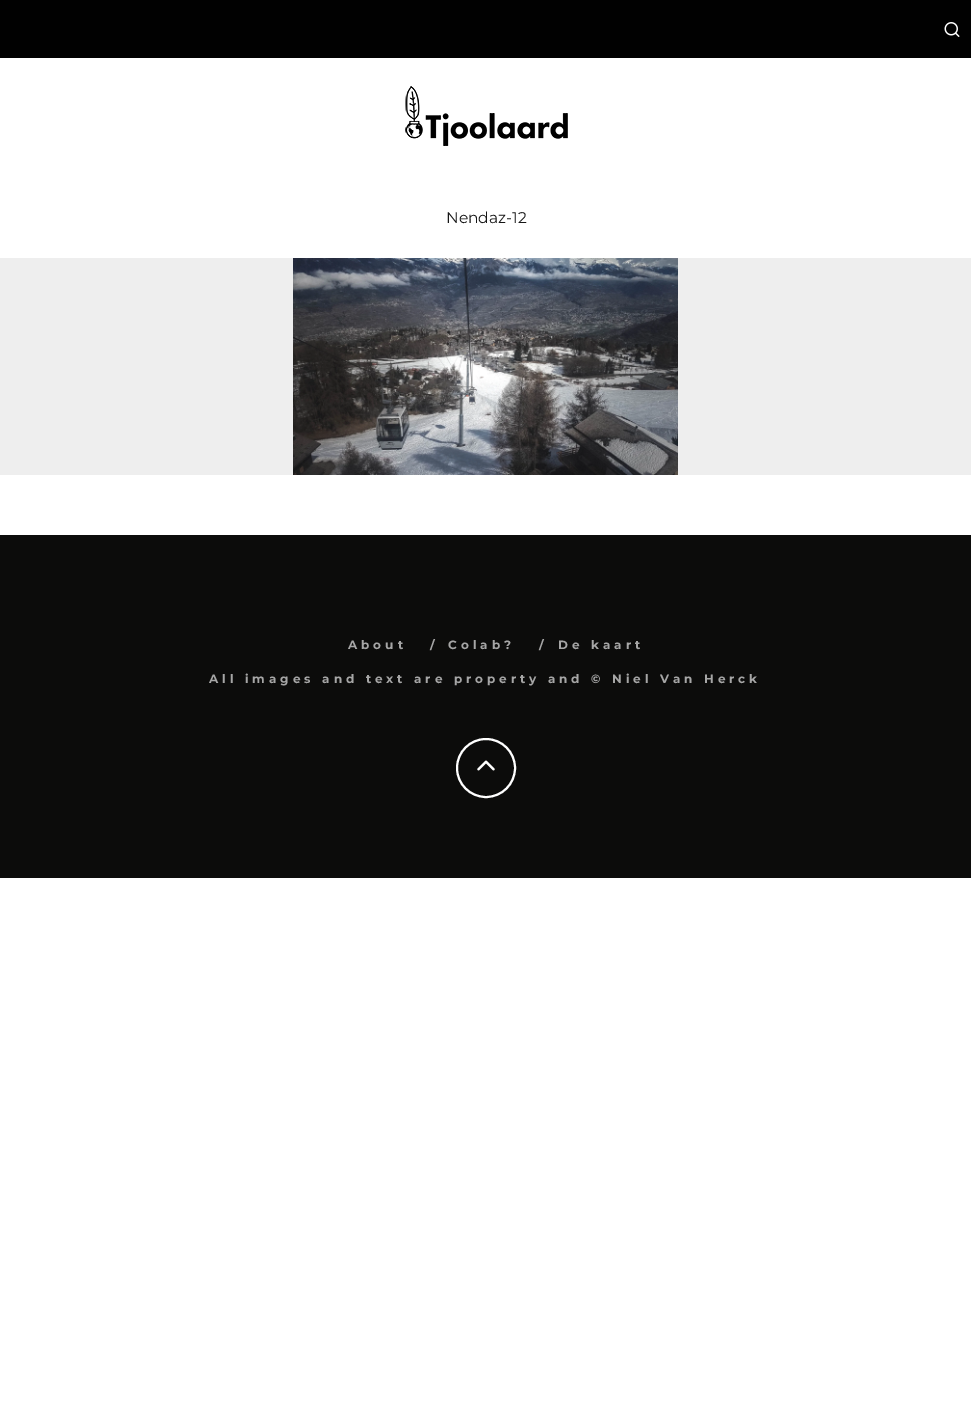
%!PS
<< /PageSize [971 1428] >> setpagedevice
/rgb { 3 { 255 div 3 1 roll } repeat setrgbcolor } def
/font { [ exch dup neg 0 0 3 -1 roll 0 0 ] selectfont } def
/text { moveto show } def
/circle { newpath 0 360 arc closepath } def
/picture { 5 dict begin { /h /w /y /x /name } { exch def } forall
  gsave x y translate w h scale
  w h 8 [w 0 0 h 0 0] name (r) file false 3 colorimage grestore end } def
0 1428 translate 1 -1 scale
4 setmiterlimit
255 255 255 rgb
0 0 971 1428 rectfill
1 1 1 rgb
0 0 971 58 rectfill
(img_01.rgb) 944 22 16 15 picture
(img_02.rgb) 405 86 163 60 picture
238 238 238 rgb
0 258 971 217 rectfill
(img_03.rgb) 293 258 385 217 picture
12 12 11 rgb
0 535 971 343 rectfill
255 255 255 rgb
2 setlinewidth
486 768 29 circle stroke
(img_04.rgb) 477 760 18 11 picture
/Montserrat-Regular 15.5 font
22 22 22 rgb
(Nendaz-12) 446 223 text
/Montserrat-Bold 12 font
166 166 166 rgb
348 649 moveto 4 0 (About) ashow
430 649 moveto 4 0 (/) ashow
448 649 moveto 4 0 (Colab?) ashow
539 649 moveto 4 0 (/) ashow
558 649 moveto 4 0 (De kaart) ashow
209 683 moveto 4 0 (All images and text are property and © Niel Van Herck) ashow
showpage
